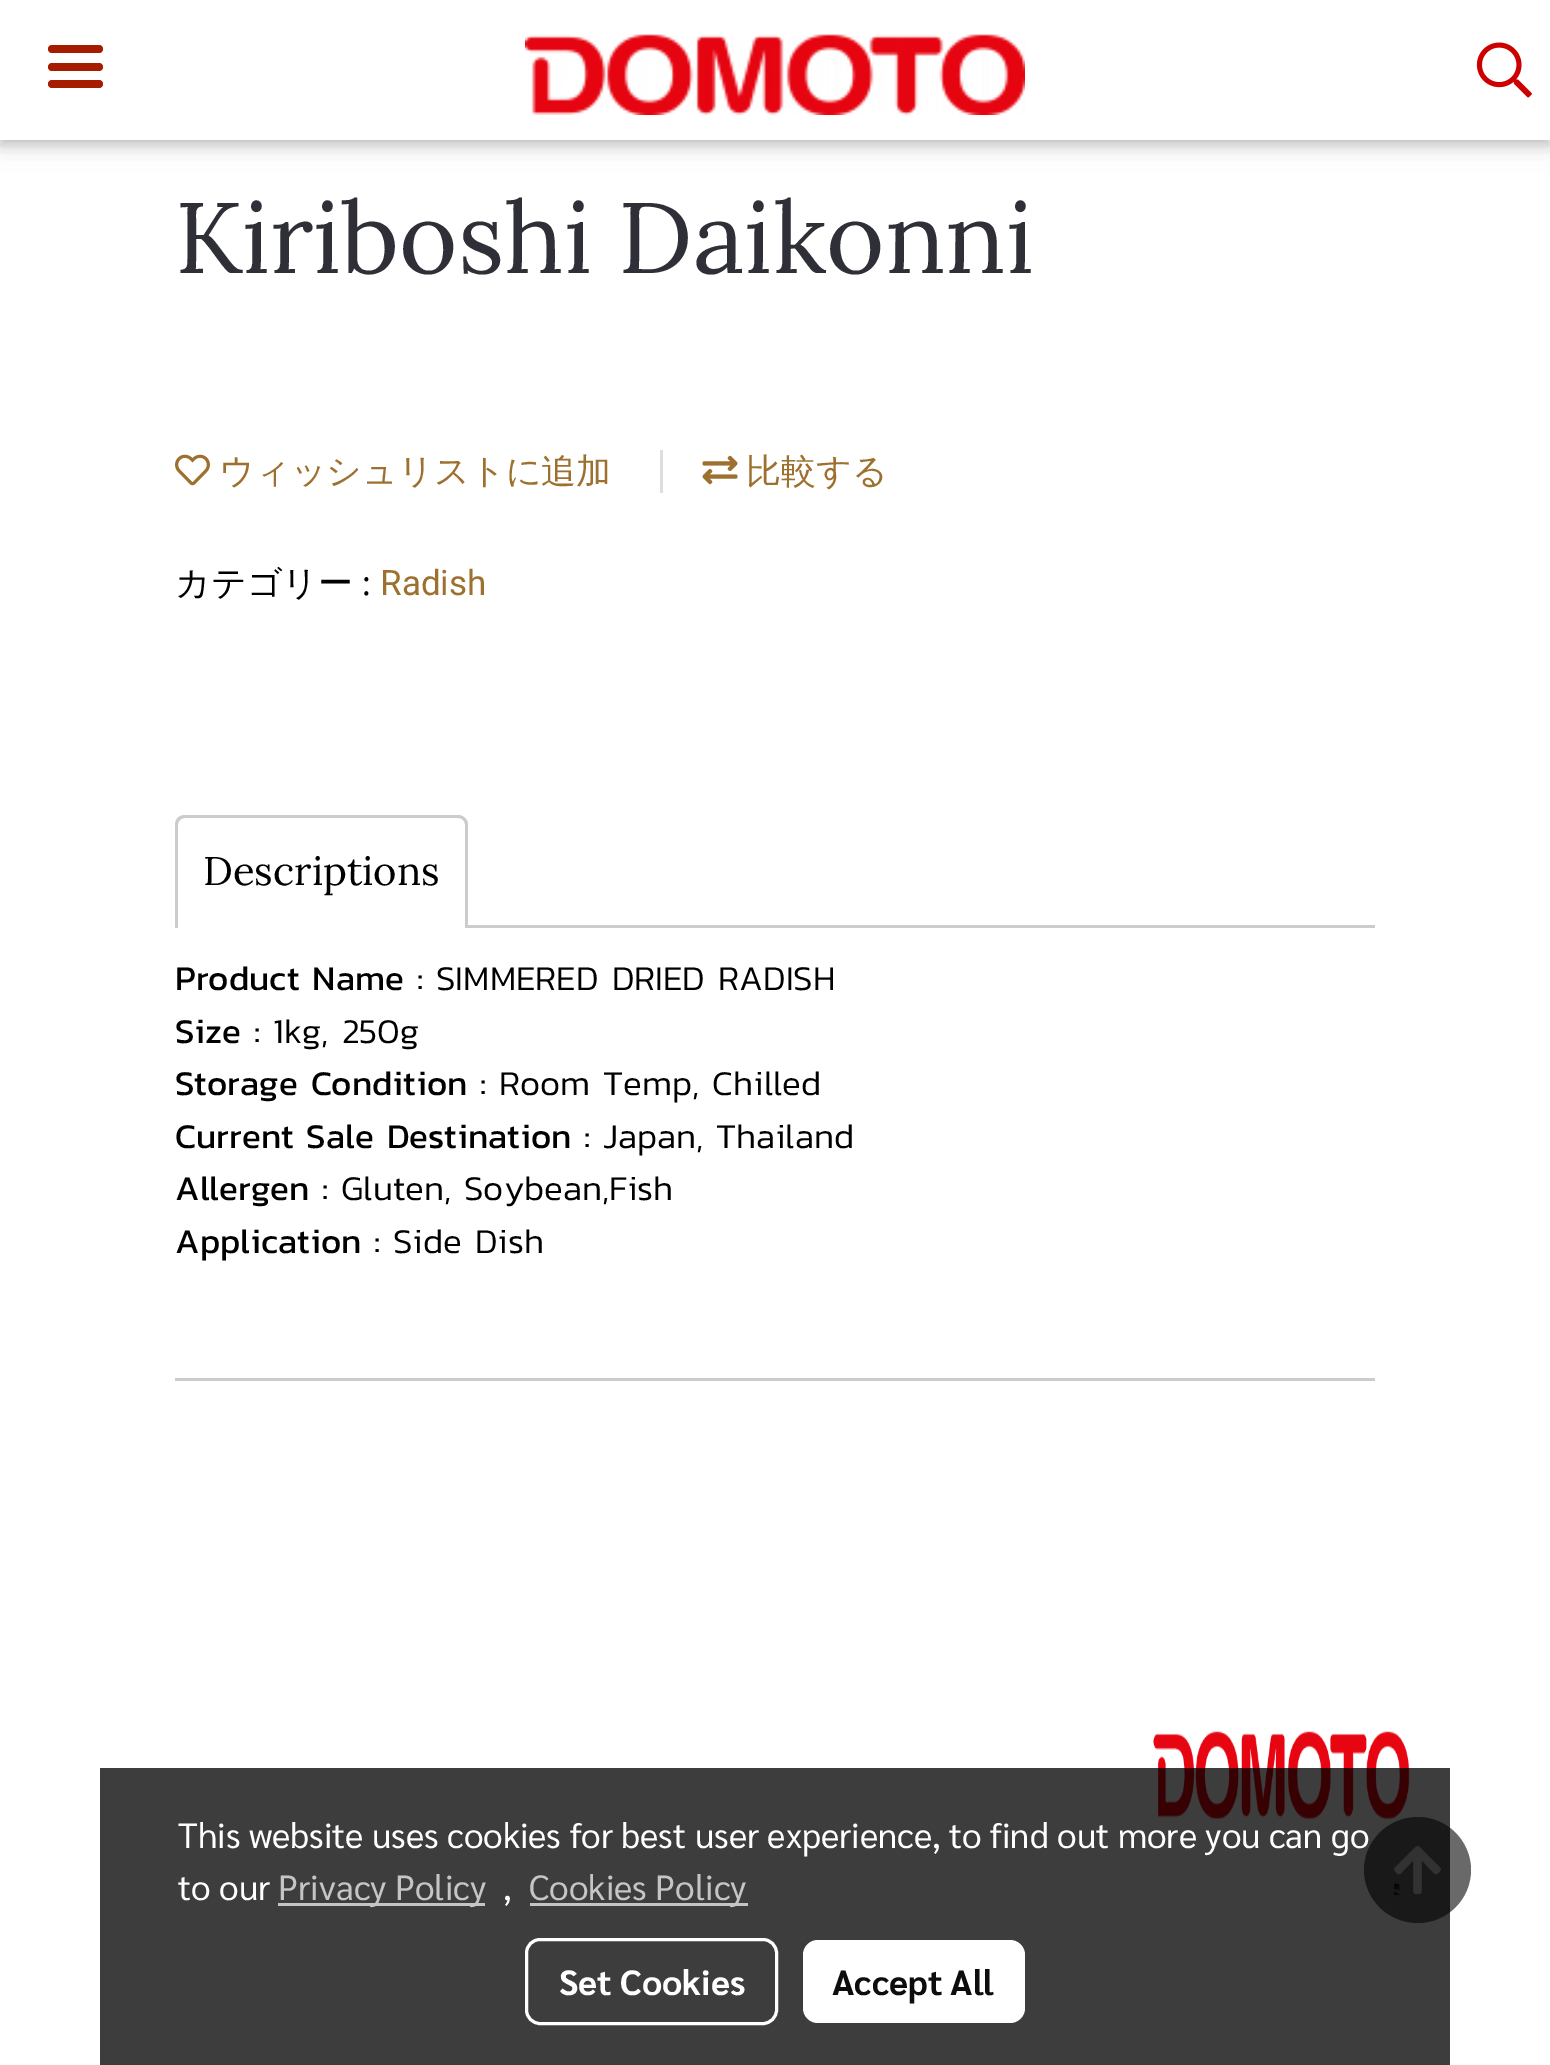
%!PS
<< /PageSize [1550 2065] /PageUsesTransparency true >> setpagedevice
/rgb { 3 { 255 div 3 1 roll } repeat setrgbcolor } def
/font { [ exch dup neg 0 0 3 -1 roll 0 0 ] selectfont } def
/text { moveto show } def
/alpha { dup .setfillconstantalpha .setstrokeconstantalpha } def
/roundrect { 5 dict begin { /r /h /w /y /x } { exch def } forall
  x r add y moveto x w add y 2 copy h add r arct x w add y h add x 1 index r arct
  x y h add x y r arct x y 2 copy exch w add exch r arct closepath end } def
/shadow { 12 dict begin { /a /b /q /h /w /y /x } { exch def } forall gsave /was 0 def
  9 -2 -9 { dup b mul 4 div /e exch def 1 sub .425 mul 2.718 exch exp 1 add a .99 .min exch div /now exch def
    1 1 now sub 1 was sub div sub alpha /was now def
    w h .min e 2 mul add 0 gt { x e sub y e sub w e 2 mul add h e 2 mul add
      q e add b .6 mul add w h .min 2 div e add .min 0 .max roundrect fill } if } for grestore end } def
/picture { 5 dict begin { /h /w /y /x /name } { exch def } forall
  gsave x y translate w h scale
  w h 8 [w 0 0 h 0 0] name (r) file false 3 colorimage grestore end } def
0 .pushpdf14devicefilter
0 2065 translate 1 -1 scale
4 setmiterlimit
255 255 255 rgb
0 0 1550 2065 rectfill
0 0 0 rgb
0 5 1550 140 0 12.5 0.12 shadow
0 5 1550 140 0 6 0.16 shadow
255 255 255 rgb
0 0 1550 140 rectfill
166 28 0 rgb
48 63 55 8 4 roundrect fill
48 45 55 8 4 roundrect fill
48 80 55 8 4 roundrect fill
(img_01.rgb) 525 34 500 81 picture
(img_02.rgb) 1476 42 56 56 picture
(img_03.rgb) 175 454 35 32 picture
222 222 222 rgb
660 450 3 43 rectfill
(img_04.rgb) 702 455 36 30 picture
204 204 204 rgb
185 815 moveto 273 0 rlineto 5 0 10 4 10 10 rcurveto 0 103 rlineto -293 0 rlineto 0 -103 rlineto 0 -6 4 -10 10 -10 rcurveto closepath 185 818 moveto 273 0 rlineto 4 0 7 3 7 7 rcurveto 0 103 rlineto -287 0 rlineto 0 -103 rlineto 0 -4 3 -7 7 -7 rcurveto closepath eofill
468 925 907 3 rectfill
175 1378 1200 3 rectfill
(img_05.rgb) 1153 1731 257 88 picture
0.7 alpha
43 42 42 rgb
1418 1817 moveto -30 0 -54 24 -54 53 rcurveto 0 29 24 53 54 53 rcurveto 29 0 53 -24 53 -53 rcurveto 0 -29 -24 -53 -53 -53 rcurveto closepath fill
1 alpha
(img_06.rgb) 1394 1846 47 49 picture
0.76 alpha
0 0 0 rgb
100 1768 1350 297 rectfill
1 alpha
197 197 197 rgb
278 1903 207 3 rectfill
530 1903 218 3 rectfill
255 255 255 rgb
3 setlinewidth
526.5 1939.5 250 84 13.5 roundrect stroke
803 1940 222 83 15 roundrect fill
/Lora-Regular 100 font
47 47 55 rgb
(Kiriboshi Daikonni) 175 273 text
/WenQuanYiZenHei-Medium 35 font
157 112 47 rgb
(ウィッシュリストに追加) 219 483 text
(比較する) 746 483 text
0 0 0 rgb
(カテゴリー) 175 595 text
/Lora-Regular 35 font
(:) 362 595 text
/Roboto-Regular 35 font
157 112 47 rgb
(Radish) 380 595 text
/Lora-Regular 40 font
0 0 0 rgb
(Descriptions) 203 885 text
/Kanit-Regular 35 font
(Product Name :) 175 990 text
/Kanit-Light 35 font
(SIMMERED DRIED RADISH) 436 990 text
/Kanit-Regular 35 font
(Size :) 175 1043 text
/Kanit-Light 35 font
(1kg, 250g) 273 1043 text
/Kanit-Regular 35 font
(Storage Condition :) 175 1095 text
/Kanit-Light 35 font
(Room Temp, Chilled) 499 1095 text
/Kanit-Regular 35 font
(Current Sale Destination :) 175 1148 text
/Kanit-Light 35 font
(Japan, Thailand) 603 1148 text
/Kanit-Regular 35 font
(Allergen :) 175 1200 text
/Kanit-Light 35 font
(Gluten, Soybean,Fish) 341 1200 text
/Kanit-Regular 35 font
(Application :) 175 1253 text
/Kanit-Light 35 font
(Side Dish) 393 1253 text
/Sarabun-Regular 35 font
255 255 255 rgb
(This website uses cookies for best user experience, to find out more you can go) 178 1848 text
(to our) 178 1900 text
197 197 197 rgb
(Privacy Policy) 278 1900 text
255 255 255 rgb
(,) 503 1900 text
197 197 197 rgb
(Cookies Policy) 529 1900 text
/Sarabun-Bold 35 font
255 255 255 rgb
(Set Cookies) 559 1995 text
13 13 13 rgb
(Accept All) 832 1995 text
.poppdf14devicefilter showpage
